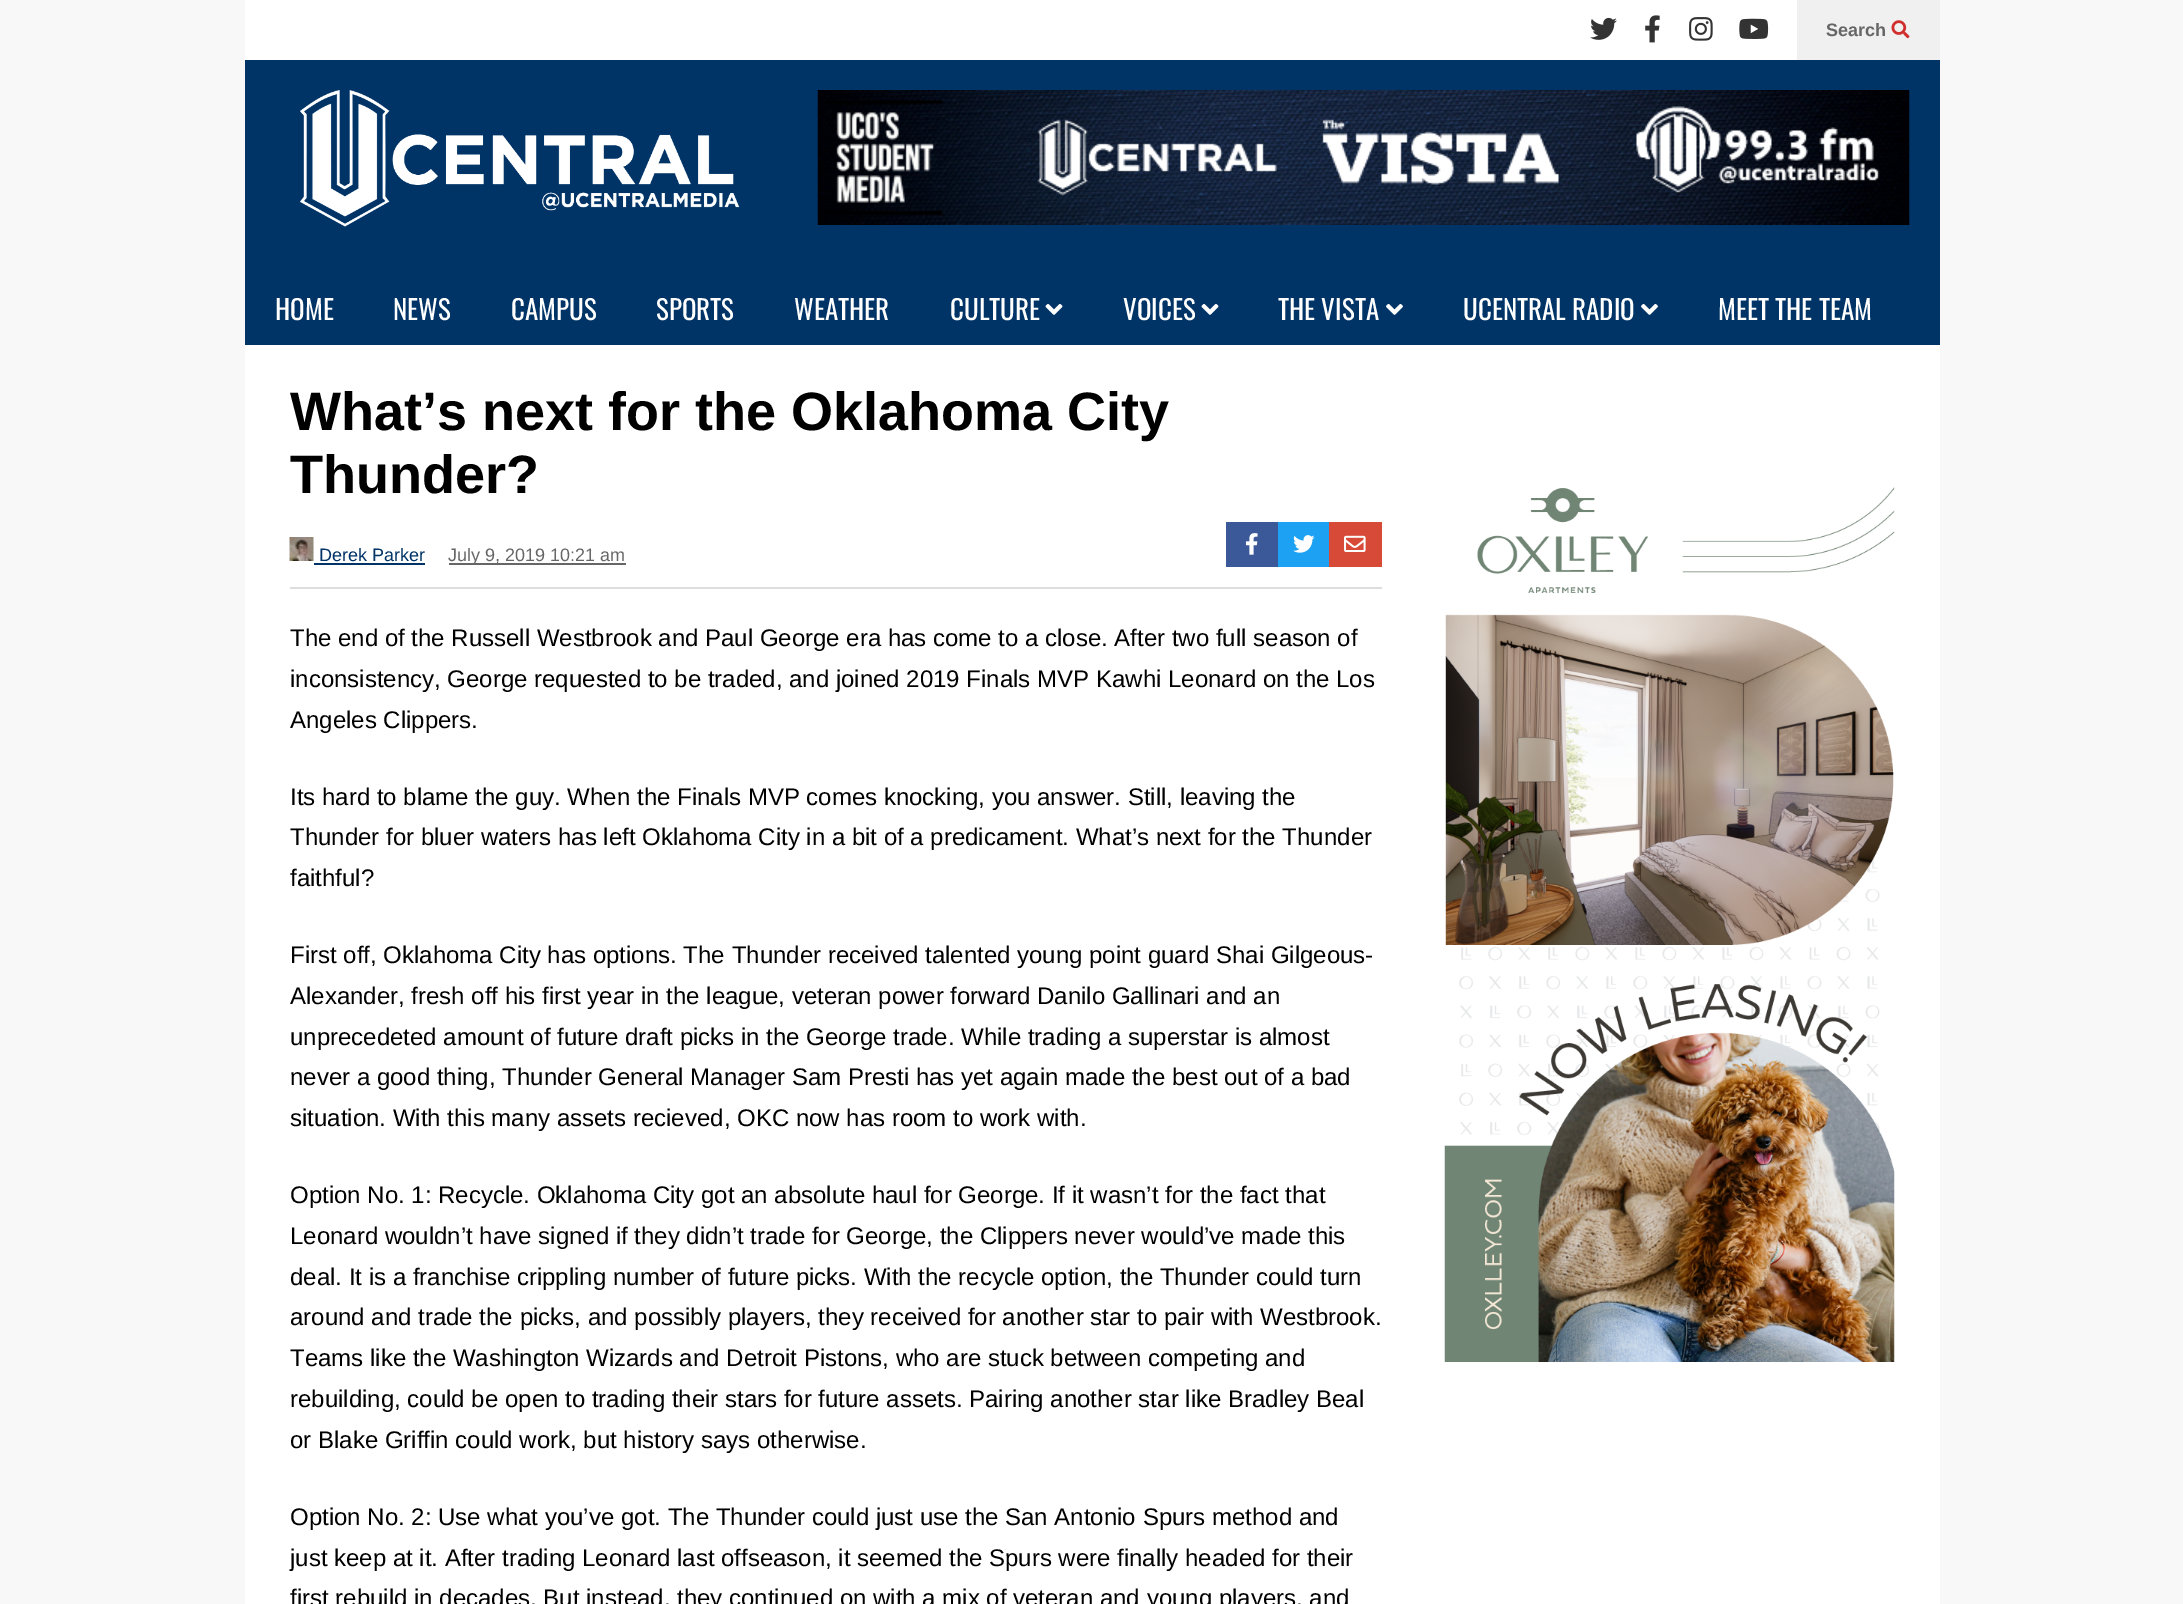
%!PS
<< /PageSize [2183 1604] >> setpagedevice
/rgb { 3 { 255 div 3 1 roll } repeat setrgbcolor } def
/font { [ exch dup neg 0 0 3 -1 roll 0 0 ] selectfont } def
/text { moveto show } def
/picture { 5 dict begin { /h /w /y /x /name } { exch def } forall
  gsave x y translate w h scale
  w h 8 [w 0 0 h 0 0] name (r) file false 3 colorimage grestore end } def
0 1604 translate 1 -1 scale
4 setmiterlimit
248 248 248 rgb
0 0 2183 1604 rectfill
255 255 255 rgb
245 0 1552 60 rectfill
(img_01.rgb) 1590 17 27 23 picture
(img_02.rgb) 1645 15 15 28 picture
(img_03.rgb) 1689 17 24 24 picture
(img_04.rgb) 1739 18 30 21 picture
240 240 240 rgb
1797 0 143 60 rectfill
(img_05.rgb) 1891 20 19 19 picture
0 51 102 rgb
245 60 1695 285 rectfill
(img_06.rgb) 300 90 440 137 picture
(img_07.rgb) 817 90 1093 135 picture
(img_08.rgb) 1045 304 18 11 picture
(img_08.rgb) 1201 304 18 11 picture
(img_09.rgb) 1386 304 17 11 picture
(img_09.rgb) 1641 304 17 11 picture
255 255 255 rgb
245 345 1695 1259 rectfill
221 221 221 rgb
290 587 1092 2 rectfill
(img_10.rgb) 289 537 25 24 picture
0 51 102 rgb
314 563 111 2 rectfill
102 102 102 rgb
449 563 177 2 rectfill
59 89 152 rgb
1226 522 52 45 rectfill
(img_11.rgb) 1245 533 13 22 picture
29 161 242 rgb
1278 522 51 45 rectfill
(img_12.rgb) 1293 535 22 18 picture
216 74 56 rgb
1329 522 53 45 rectfill
(img_13.rgb) 1344 535 22 17 picture
(img_14.rgb) 1444 487 451 875 picture
/LiberationSans-Bold 18 font
102 102 102 rgb
(Search) 1826 36 text
/Oswald-Regular 27 font
255 255 255 rgb
(HOME) 275 320 text
(NEWS) 393 320 text
(CAMPUS) 511 320 text
(SPORTS) 656 320 text
(WEATHER) 794 320 text
(CULTURE) 950 320 text
(VOICES) 1123 320 text
(THE VISTA) 1278 320 text
(UCENTRAL RADIO) 1463 320 text
(MEET THE TEAM) 1718 320 text
/LiberationSans-Bold 54 font
0 0 0 rgb
(What’s next for the Oklahoma City) 290 430 text
(Thunder?) 290 493 text
/LiberationSans-Regular 18 font
0 51 102 rgb
(Derek Parker) 319 561 text
102 102 102 rgb
(July 9, 2019 10:21 am) 448 561 text
/LiberationSans-Regular 24 font
0 0 0 rgb
(The end of the Russell Westbrook and Paul George era has come to a close. After two full season of) 290 646 text
(inconsistency, George requested to be traded, and joined 2019 Finals MVP Kawhi Leonard on the Los) 290 687 text
(Angeles Clippers.) 290 728 text
(Its hard to blame the guy. When the Finals MVP comes knocking, you answer. Still, leaving the) 290 805 text
(Thunder for bluer waters has left Oklahoma City in a bit of a predicament. What’s next for the Thunder) 290 845 text
(faithful?) 290 886 text
(First off, Oklahoma City has options. The Thunder received talented young point guard Shai Gilgeous-) 290 963 text
(Alexander, fresh off his first year in the league, veteran power forward Danilo Gallinari and an) 290 1004 text
(unprecedeted amount of future draft picks in the George trade. While trading a superstar is almost) 290 1045 text
(never a good thing, Thunder General Manager Sam Presti has yet again made the best out of a bad) 290 1085 text
(situation. With this many assets recieved, OKC now has room to work with.) 290 1126 text
(Option No. 1: Recycle. Oklahoma City got an absolute haul for George. If it wasn’t for the fact that) 290 1203 text
(Leonard wouldn’t have signed if they didn’t trade for George, the Clippers never would’ve made this) 290 1244 text
(deal. It is a franchise crippling number of future picks. With the recycle option, the Thunder could turn) 290 1285 text
(around and trade the picks, and possibly players, they received for another star to pair with Westbrook.) 290 1325 text
(Teams like the Washington Wizards and Detroit Pistons, who are stuck between competing and) 290 1366 text
(rebuilding, could be open to trading their stars for future assets. Pairing another star like Bradley Beal) 290 1407 text
(or Blake Griffin could work, but history says otherwise.) 290 1448 text
(Option No. 2: Use what you’ve got. The Thunder could just use the San Antonio Spurs method and) 290 1525 text
(just keep at it. After trading Leonard last offseason, it seemed the Spurs were finally headed for their) 290 1566 text
(first rebuild in decades. But instead, they continued on with a mix of veteran and young players, and) 290 1606 text
showpage
